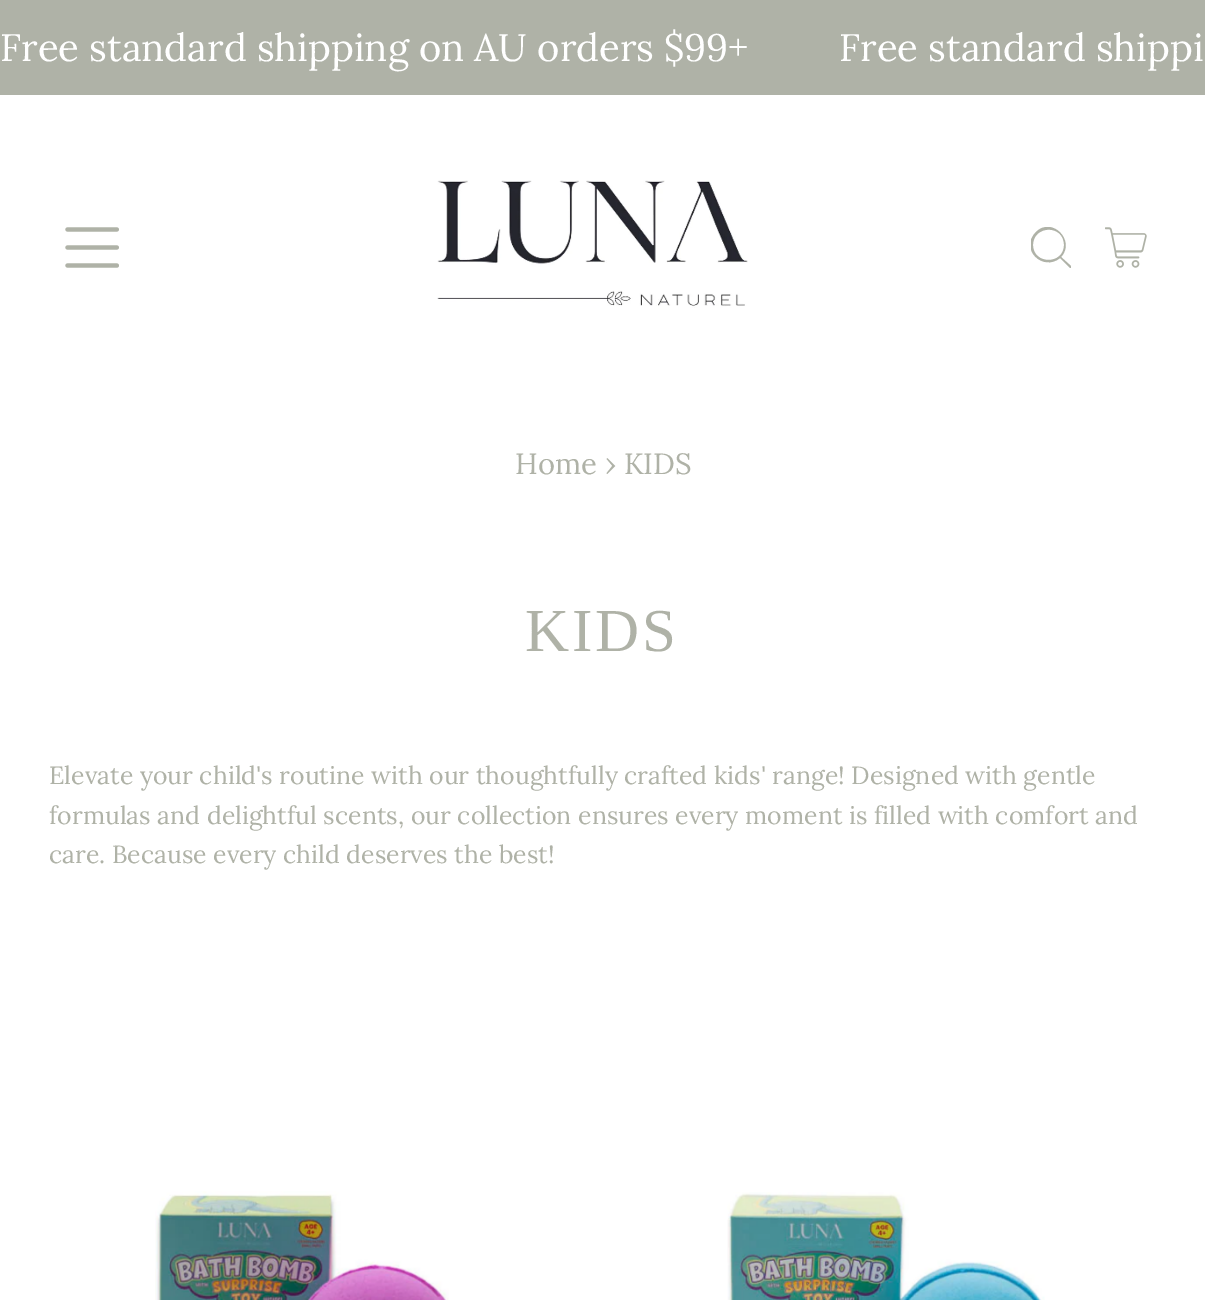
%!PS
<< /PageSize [1205 1300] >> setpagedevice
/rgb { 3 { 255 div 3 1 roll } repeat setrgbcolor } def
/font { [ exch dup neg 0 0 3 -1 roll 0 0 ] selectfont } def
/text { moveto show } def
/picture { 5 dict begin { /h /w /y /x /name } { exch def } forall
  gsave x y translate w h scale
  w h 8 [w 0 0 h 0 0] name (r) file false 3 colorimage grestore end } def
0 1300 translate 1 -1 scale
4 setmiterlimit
255 255 255 rgb
0 0 1205 1300 rectfill
175 178 167 rgb
0 0 1205 95 rectfill
(img_01.rgb) 65 227 54 41 picture
(img_02.rgb) 437 180 311 128 picture
gsave
1031 227 40 41 rectclip
1071 266 moveto -10 -9 rlineto 15 -16 -9 -41 -25 -25 rcurveto -17 17 7 40 24 26 rcurveto 10 10 rlineto 1 0 2 -1 1 -2 rcurveto closepath 1033 245 moveto 0 -20 31 -21 31 0 rcurveto 0 20 -31 20 -31 0 rcurveto closepath fill
grestore
(img_03.rgb) 1105 227 42 41 picture
(img_04.rgb) 155 1191 294 109 picture
(img_05.rgb) 727 1192 318 108 picture
/Lora-Regular 38.25 font
255 255 255 rgb
(Free standard shipping on AU orders $99+) 0 61 text
(Free standard shippi) 839 61 text
/Lora-Regular 29.25 font
175 178 167 rgb
(Home › KIDS) 515 474 text
/LiberationSerif-Regular 61 font
525 651 moveto 3 0 (KIDS) ashow
/Lora-Regular 24.85 font
(Elevate your child's routine with our thoughtfully crafted kids' range! Designed with gentle) 49 784 text
(formulas and delightful scents, our collection ensures every moment is filled with comfort and) 49 824 text
(care. Because every child deserves the best!) 49 863 text
showpage
